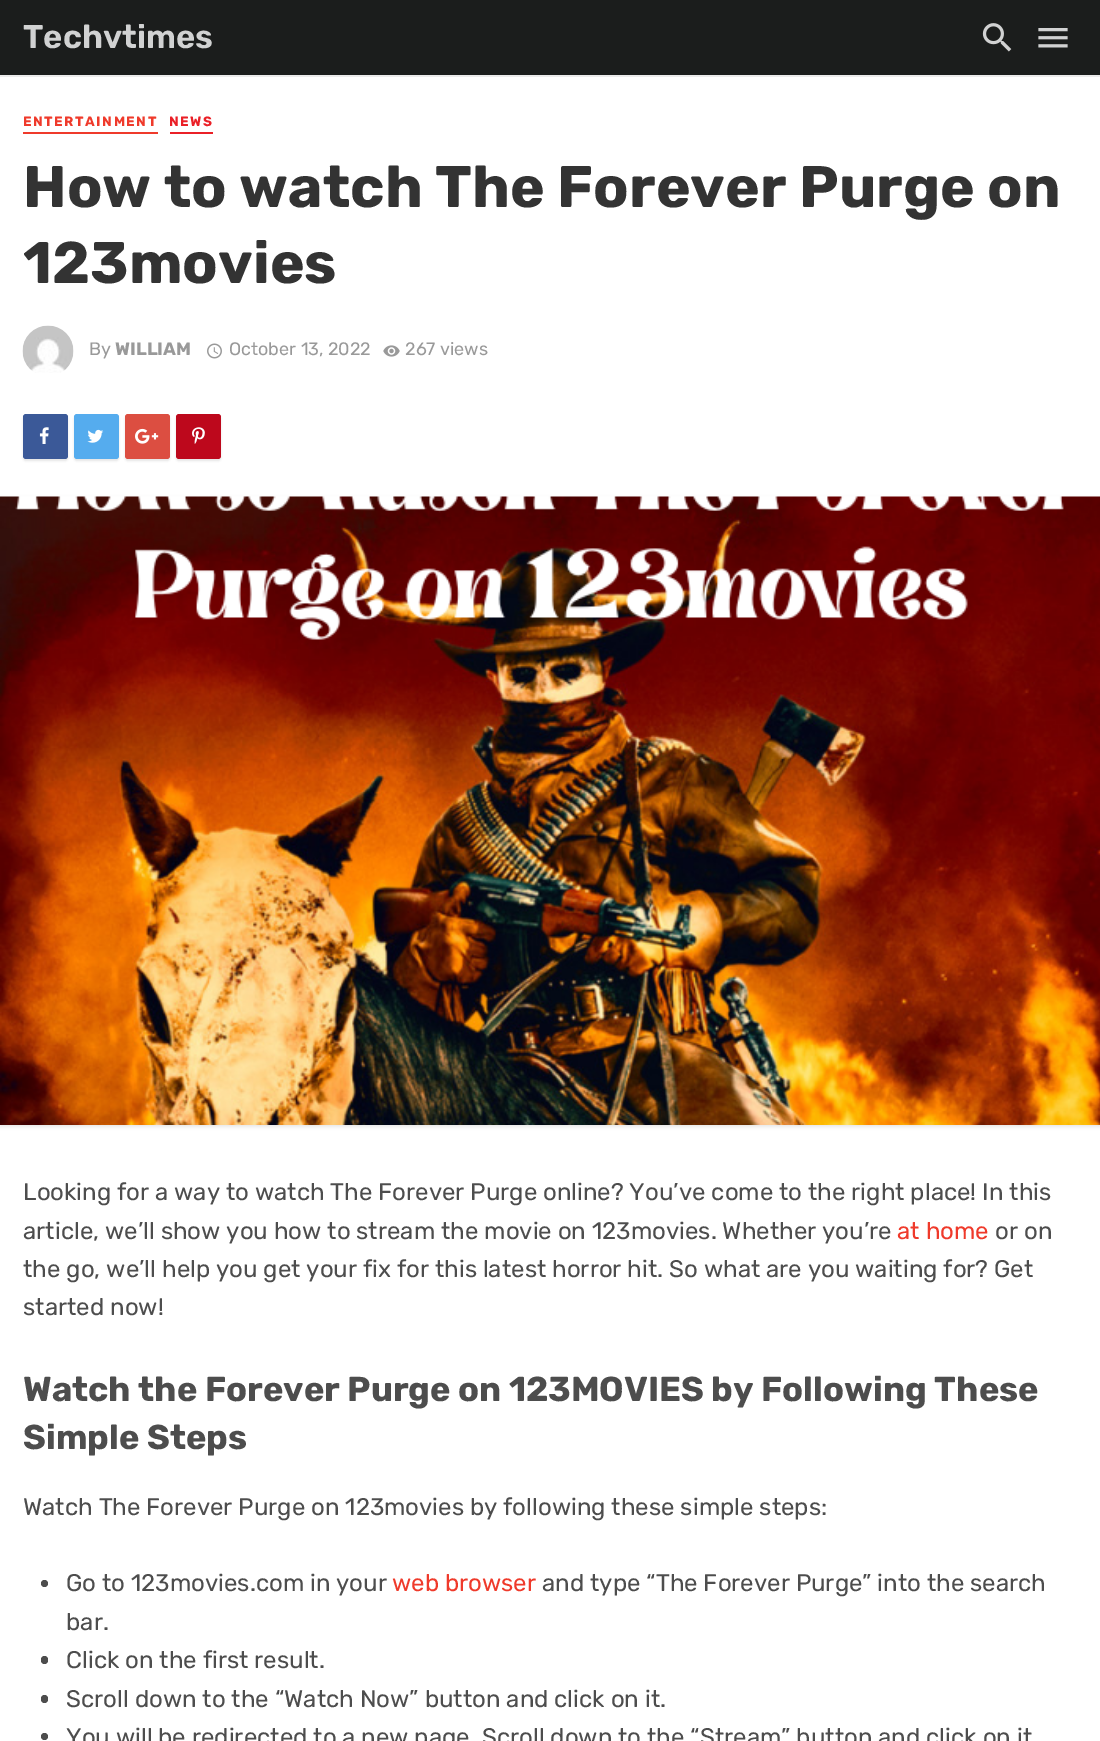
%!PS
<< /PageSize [1100 1741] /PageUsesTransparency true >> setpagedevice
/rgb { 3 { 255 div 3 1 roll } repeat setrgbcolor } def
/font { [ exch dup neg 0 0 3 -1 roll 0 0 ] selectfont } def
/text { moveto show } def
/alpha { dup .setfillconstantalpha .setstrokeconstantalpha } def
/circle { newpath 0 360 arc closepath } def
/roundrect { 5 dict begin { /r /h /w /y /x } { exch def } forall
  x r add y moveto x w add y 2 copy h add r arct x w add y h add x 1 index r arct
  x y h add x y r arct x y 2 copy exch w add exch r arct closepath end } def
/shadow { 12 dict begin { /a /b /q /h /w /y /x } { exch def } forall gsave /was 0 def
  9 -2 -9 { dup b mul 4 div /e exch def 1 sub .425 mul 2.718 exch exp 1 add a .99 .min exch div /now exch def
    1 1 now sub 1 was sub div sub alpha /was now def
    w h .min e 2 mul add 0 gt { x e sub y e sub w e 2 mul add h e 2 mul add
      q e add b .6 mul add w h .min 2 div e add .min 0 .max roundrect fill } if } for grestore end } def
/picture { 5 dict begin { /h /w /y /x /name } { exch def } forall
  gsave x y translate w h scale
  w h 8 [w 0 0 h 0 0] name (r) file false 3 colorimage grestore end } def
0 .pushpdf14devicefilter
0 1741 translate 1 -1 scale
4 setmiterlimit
255 255 255 rgb
0 0 1100 1741 rectfill
245 245 245 rgb
0 75 1100 2 rectfill
0.04 alpha
0 0 0 rgb
0 75 1100 2 rectfill
1 alpha
27 29 28 rgb
0 0 1100 75 rectfill
(img_01.rgb) 982 23 30 29 picture
(img_02.rgb) 1038 28 30 20 picture
239 58 43 rgb
23 132 135 2 rectfill
234 32 39 rgb
170 132 43 2 rectfill
(img_03.rgb) 22 325 52 48 picture
(img_04.rgb) 207 343 15 16 picture
(img_05.rgb) 383 345 17 12 picture
0 0 0 rgb
23 416 45 45 3 1 0.1 shadow
59 89 152 rgb
23 414 45 45 3 roundrect fill
(img_06.rgb) 39 427 10 17 picture
0 0 0 rgb
74 416 45 45 3 1 0.1 shadow
85 172 238 rgb
74 414 45 45 3 roundrect fill
(img_07.rgb) 87 429 17 14 picture
0 0 0 rgb
125 416 45 45 3 1 0.1 shadow
220 78 65 rgb
125 414 45 45 3 roundrect fill
(img_08.rgb) 135 428 24 16 picture
0 0 0 rgb
176 416 45 45 3 1 0.1 shadow
189 8 28 rgb
176 414 45 45 3 roundrect fill
(img_09.rgb) 192 427 13 17 picture
0 0 0 rgb
0 498 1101 629 0 1.5 0.08 shadow
(img_10.rgb) 0 496 1100 629 picture
77 77 77 rgb
44.5 1583.5 3.5 circle fill
41 1656 7 8 3.5 roundrect fill
41 1695 7 8 3.5 roundrect fill
44.5 1736.5 3.5 circle fill
/Rubik-SemiBold 33 font
209 210 210 rgb
(Techvtimes) 23 48 text
/Rubik-Bold 13.5 font
239 58 43 rgb
23 126 moveto 1.5 0 (ENTERTAINMENT) ashow
234 32 39 rgb
169 126 moveto 1.5 0 (NEWS) ashow
/Rubik-Bold 58.5 font
51 51 51 rgb
(How to watch The Forever Purge on) 23 207 text
(123movies) 23 283 text
/Rubik-Regular 18 font
153 153 153 rgb
(By) 89 355 text
/Rubik-Bold 18 font
(WILLIAM) 115 355 text
/Rubik-Regular 18 font
(October 13, 2022) 229 355 text
(267 views) 405 355 text
/Rubik-Regular 24 font
77 77 77 rgb
(Looking for a way to watch The Forever Purge online? You’ve come to the right place! In this) 23 1200 text
(article, we’ll show you how to stream the movie on 123movies. Whether you’re) 23 1239 text
239 58 43 rgb
(at home) 897 1239 text
77 77 77 rgb
(or on) 995 1239 text
(the go, we’ll help you get your fix for this latest horror hit. So what are you waiting for? Get) 23 1277 text
(started now!) 23 1315 text
/Rubik-Bold 34.5 font
(Watch the Forever Purge on 123MOVIES by Following These) 23 1401 text
(Simple Steps) 23 1449 text
/Rubik-Regular 24 font
(Watch The Forever Purge on 123movies by following these simple steps:) 23 1515 text
(Go to 123movies.com in your) 66 1591 text
239 58 43 rgb
(web browser) 392 1591 text
77 77 77 rgb
(and type “The Forever Purge” into the search) 542 1591 text
(bar.) 66 1630 text
(Click on the first result.) 66 1668 text
(Scroll down to the “Watch Now” button and click on it.) 66 1707 text
(You will be redirected to a new page. Scroll down to the “Stream” button and click on it) 66 1745 text
.poppdf14devicefilter showpage
